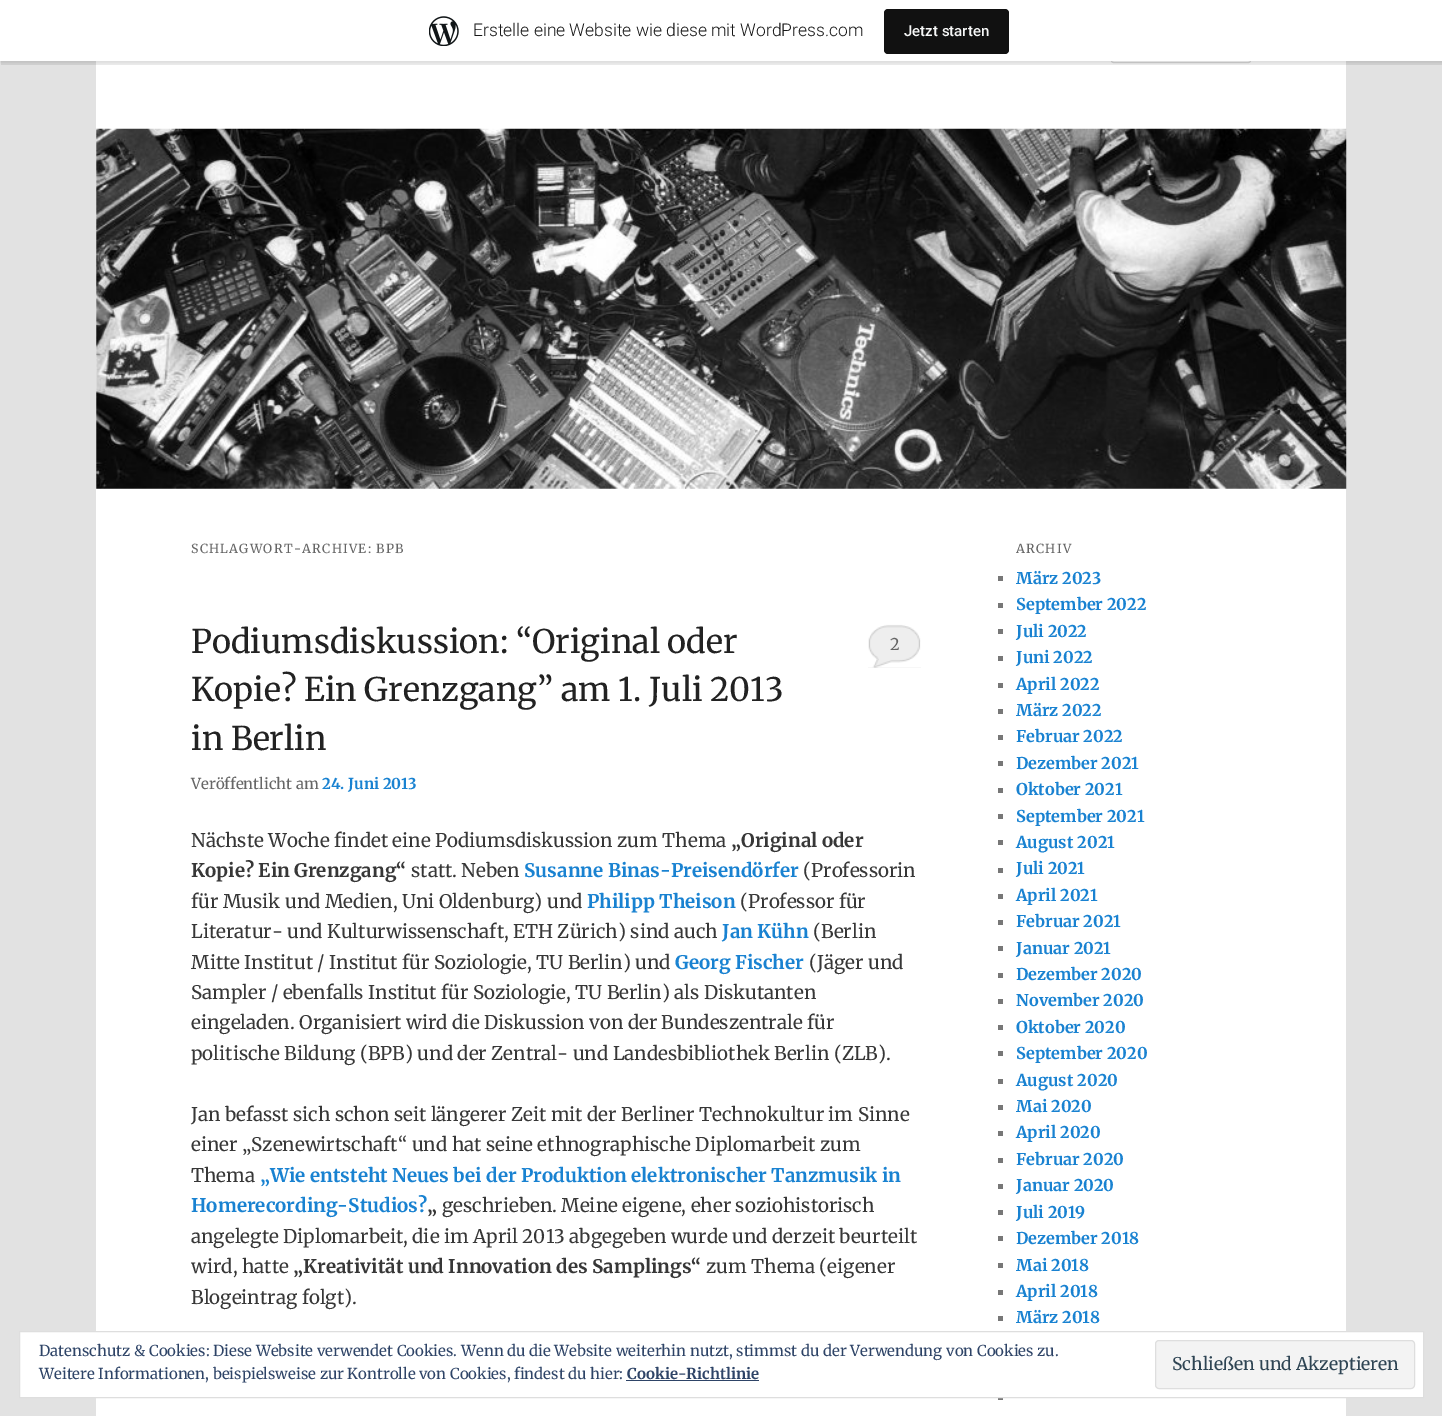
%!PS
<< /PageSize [1442 1416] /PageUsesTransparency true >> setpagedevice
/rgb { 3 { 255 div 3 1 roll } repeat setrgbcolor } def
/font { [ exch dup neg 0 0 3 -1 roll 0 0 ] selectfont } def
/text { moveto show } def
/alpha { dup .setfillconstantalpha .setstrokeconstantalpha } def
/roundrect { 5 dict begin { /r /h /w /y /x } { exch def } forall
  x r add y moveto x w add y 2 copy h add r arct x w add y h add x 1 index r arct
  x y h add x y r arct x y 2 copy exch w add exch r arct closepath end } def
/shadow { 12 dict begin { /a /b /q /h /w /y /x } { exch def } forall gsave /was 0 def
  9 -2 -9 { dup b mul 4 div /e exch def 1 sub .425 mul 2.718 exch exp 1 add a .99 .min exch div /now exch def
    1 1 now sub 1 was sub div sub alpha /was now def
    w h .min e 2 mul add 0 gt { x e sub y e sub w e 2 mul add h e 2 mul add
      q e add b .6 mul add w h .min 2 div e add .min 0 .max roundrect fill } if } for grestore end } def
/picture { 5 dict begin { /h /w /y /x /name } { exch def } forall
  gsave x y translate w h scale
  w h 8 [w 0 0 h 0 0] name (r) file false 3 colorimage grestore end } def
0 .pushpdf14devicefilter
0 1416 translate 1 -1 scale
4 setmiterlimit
226 226 226 rgb
0 0 1442 1416 rectfill
255 255 255 rgb
96 61 1250 1355 rectfill
221 221 221 rgb
1111.5 23.5 139 39 2 roundrect stroke
0 0 0 rgb
0 1 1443 62 0 1 0.05 shadow
0.08 alpha
1 61 moveto 0 4 rlineto 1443 0 rlineto 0 -61 rlineto -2 0 rlineto 0 57 rlineto closepath fill
1 alpha
255 255 255 rgb
0 0 1442 61 rectfill
(img_01.rgb) 429 16 30 30 picture
17 17 17 rgb
884 9 125 45 4 roundrect fill
(img_02.rgb) 96 128 1251 361 picture
238 238 238 rgb
868 624 53 44 rectfill
(img_03.rgb) 868 623 53 45 picture
119 119 119 rgb
998 576 5 5 rectfill
998 603 5 5 rectfill
998 629 5 5 rectfill
998 656 5 5 rectfill
998 683 5 5 rectfill
998 709 5 5 rectfill
998 735 5 5 rectfill
998 761 5 5 rectfill
998 788 5 5 rectfill
998 814 5 5 rectfill
998 840 5 5 rectfill
998 868 5 5 rectfill
998 894 5 5 rectfill
998 920 5 5 rectfill
998 946 5 5 rectfill
998 973 5 5 rectfill
998 999 5 5 rectfill
998 1025 5 5 rectfill
998 1051 5 5 rectfill
998 1079 5 5 rectfill
998 1105 5 5 rectfill
998 1131 5 5 rectfill
998 1158 5 5 rectfill
998 1184 5 5 rectfill
998 1210 5 5 rectfill
998 1236 5 5 rectfill
998 1263 5 5 rectfill
998 1290 5 5 rectfill
998 1316 5 5 rectfill
998 1398 5 2 rectfill
255 255 255 rgb
19.5 1331.5 moveto 1404 0 rlineto 0 66 rlineto -1404 0 rlineto closepath gsave fill grestore
222 222 222 rgb
stroke
46 68 103 rgb
626 1380 133 1 rectfill
243 243 243 rgb
1155.5 1340.5 259 48 3.5 roundrect gsave fill grestore
222 222 222 rgb
stroke
/Roboto-Light 17.5 font
23 23 23 rgb
(Erstelle eine Website wie diese mit WordPress.com) 473 36 text
/Roboto-Medium 15 font
246 247 247 rgb
(Jetzt starten) 904 36 text
/Merriweather-Regular 12.5 font
102 102 102 rgb
191 553 moveto 1.25 0 (SCHLAGWORT-ARCHIVE: BPB) ashow
/Merriweather-Regular 32.5 font
34 34 34 rgb
(Podiumsdiskussion: “Original oder) 191 653 text
(Kopie? Ein Grenzgang” am 1. Juli 2013) 191 701 text
(in Berlin) 191 750 text
/Merriweather-Regular 16.25 font
102 102 102 rgb
(2) 890 650 text
/Merriweather-Regular 15 font
(Veröffentlicht am) 191 789 text
/Merriweather-Bold 15 font
25 130 209 rgb
(24. Juni 2013) 322 789 text
/Merriweather-Regular 18.75 font
55 55 55 rgb
(Nächste Woche findet eine Podiumsdiskussion zum Thema) 191 847 text
/Merriweather-Bold 18.75 font
(„Original oder) 731 847 text
(Kopie? Ein Grenzgang“) 191 877 text
/Merriweather-Regular 18.75 font
(statt. Neben) 411 877 text
/Merriweather-Bold 18.75 font
25 130 209 rgb
(Susanne Binas-Preisendörfer) 524 877 text
/Merriweather-Regular 18.75 font
55 55 55 rgb
(\(Professorin) 803 877 text
(für Musik und Medien, Uni Oldenburg\) und) 191 908 text
/Merriweather-Bold 18.75 font
25 130 209 rgb
(Philipp Theison) 587 908 text
/Merriweather-Regular 18.75 font
55 55 55 rgb
(\(Professor für) 740 908 text
(Literatur- und Kulturwissenschaft, ETH Zürich\) sind auch) 191 938 text
/Merriweather-Bold 18.75 font
25 130 209 rgb
(Jan Kühn) 722 938 text
/Merriweather-Regular 18.75 font
55 55 55 rgb
(\(Berlin) 813 938 text
(Mitte Institut / Institut für Soziologie, TU Berlin\) und) 191 969 text
/Merriweather-Bold 18.75 font
25 130 209 rgb
(Georg Fischer) 675 969 text
/Merriweather-Regular 18.75 font
55 55 55 rgb
(\(Jäger und) 809 969 text
(Sampler / ebenfalls Institut für Soziologie, TU Berlin\) als Diskutanten) 191 999 text
(eingeladen. Organisiert wird die Diskussion von der Bundeszentrale für) 191 1029 text
(politische Bildung \(BPB\) und der Zentral- und Landesbibliothek Berlin \(ZLB\).) 191 1060 text
(Jan befasst sich schon seit längerer Zeit mit der Berliner Technokultur im Sinne) 191 1121 text
(einer „Szenewirtschaft“ und hat seine ethnographische Diplomarbeit zum) 191 1151 text
(Thema) 191 1182 text
/Merriweather-Bold 18.75 font
25 130 209 rgb
(„Wie entsteht Neues bei der Produktion elektronischer Tanzmusik in) 260 1182 text
(Homerecording-Studios?) 191 1212 text
55 55 55 rgb
(„) 427 1212 text
/Merriweather-Regular 18.75 font
(geschrieben. Meine eigene, eher soziohistorisch) 442 1212 text
(angelegte Diplomarbeit, die im April 2013 abgegeben wurde und derzeit beurteilt) 191 1243 text
(wird, hatte) 191 1273 text
/Merriweather-Bold 18.75 font
(„Kreativität und Innovation des Samplings“) 293 1273 text
/Merriweather-Regular 18.75 font
(zum Thema \(eigener) 706 1273 text
(Blogeintrag folgt\).) 191 1304 text
/Merriweather-Regular 12.5 font
102 102 102 rgb
1016 553 moveto 1.25 0 (ARCHIV) ashow
/Merriweather-Bold 16.25 font
25 130 209 rgb
(März 2023) 1016 584 text
(September 2022) 1016 610 text
(Juli 2022) 1016 637 text
(Juni 2022) 1016 663 text
(April 2022) 1016 690 text
(März 2022) 1016 716 text
(Februar 2022) 1016 742 text
(Dezember 2021) 1016 769 text
(Oktober 2021) 1016 795 text
(September 2021) 1016 822 text
(August 2021) 1016 848 text
(Juli 2021) 1016 874 text
(April 2021) 1016 901 text
(Februar 2021) 1016 927 text
(Januar 2021) 1016 954 text
(Dezember 2020) 1016 980 text
(November 2020) 1016 1006 text
(Oktober 2020) 1016 1033 text
(September 2020) 1016 1059 text
(August 2020) 1016 1086 text
(Mai 2020) 1016 1112 text
(April 2020) 1016 1138 text
(Februar 2020) 1016 1165 text
(Januar 2020) 1016 1191 text
(Juli 2019) 1016 1218 text
(Dezember 2018) 1016 1244 text
(Mai 2018) 1016 1271 text
(April 2018) 1016 1297 text
(März 2018) 1016 1323 text
/Merriweather-Regular 15 font
46 68 103 rgb
(Datenschutz & Cookies: Diese Website verwendet Cookies. Wenn du die Website weiterhin nutzt, stimmst du der Verwendung von Cookies zu.) 39 1356 text
(Weitere Informationen, beispielsweise zur Kontrolle von Cookies, findest du hier:) 39 1379 text
/Merriweather-Bold 15 font
(Cookie-Richtlinie) 627 1379 text
/Merriweather-Regular 17.5 font
46 68 83 rgb
(Schließen und Akzeptieren) 1172 1370 text
.poppdf14devicefilter showpage
